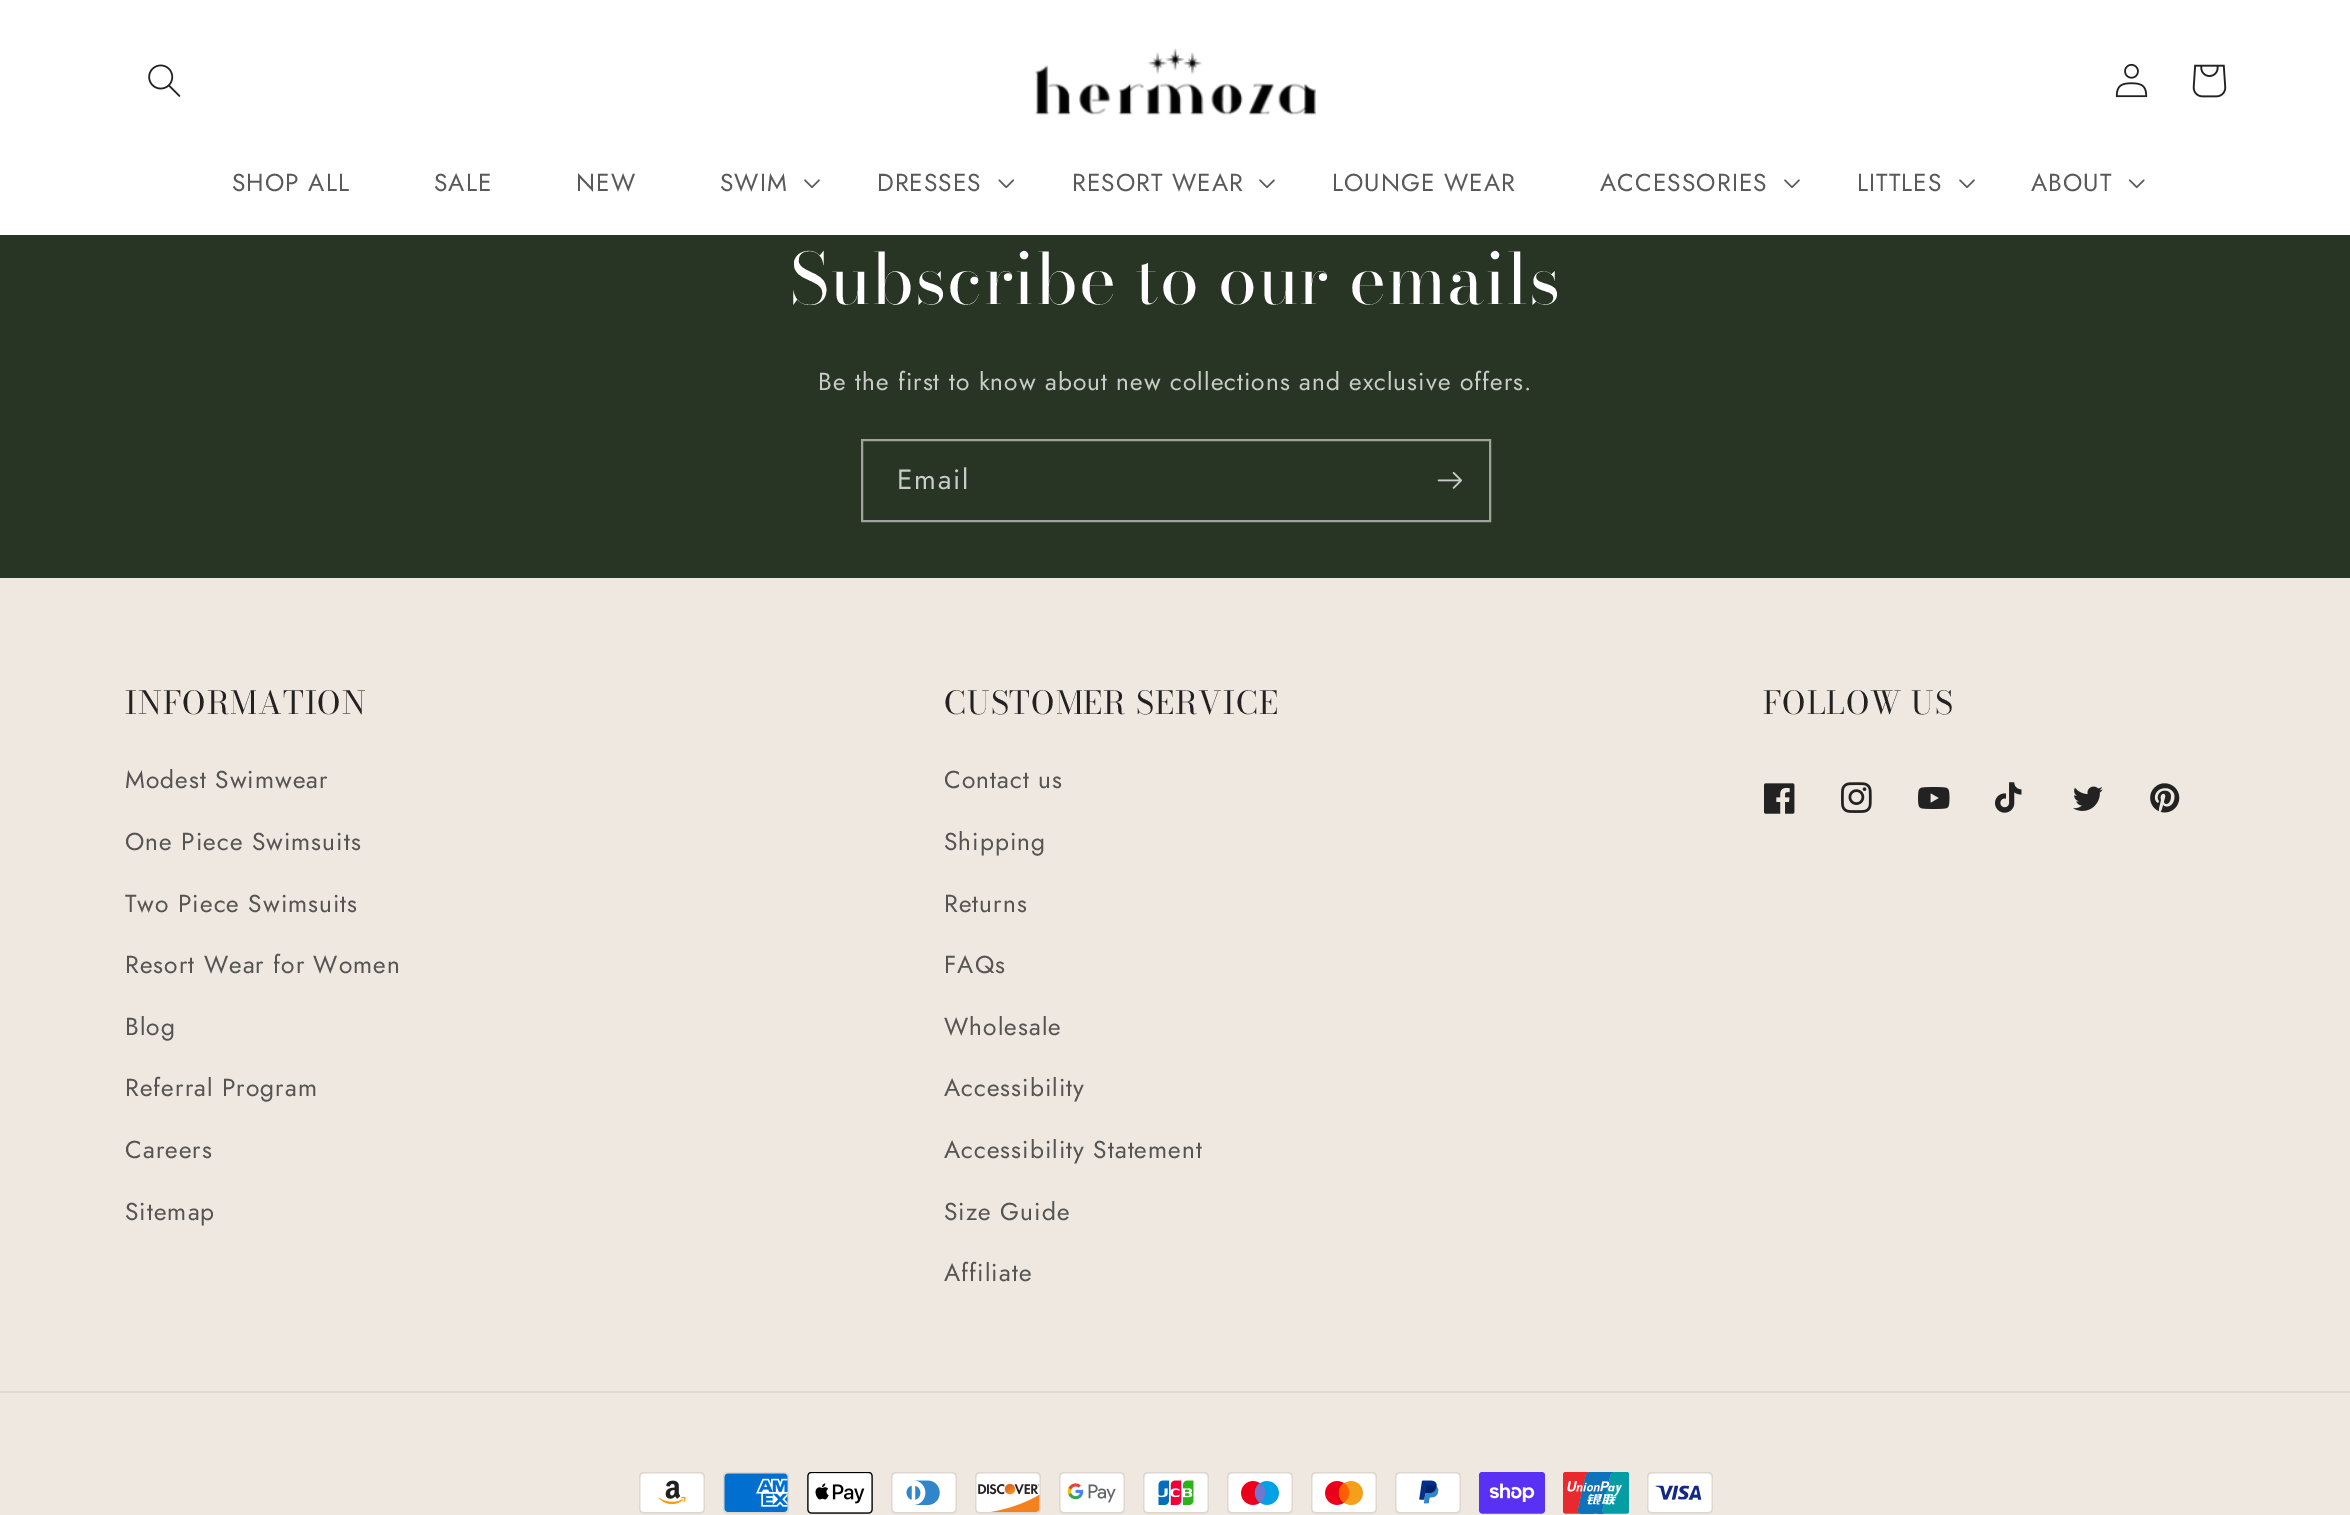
%!PS
<< /PageSize [2350 1515] >> setpagedevice
/rgb { 3 { 255 div 3 1 roll } repeat setrgbcolor } def
/font { [ exch dup neg 0 0 3 -1 roll 0 0 ] selectfont } def
/picture { 5 dict begin { /h /w /y /x /name } { exch def } forall
  gsave x y translate w h scale
  w h 8 [w 0 0 h 0 0] name (r) file false 3 colorimage grestore end } def
0 1515 translate 1 -1 scale
4 setmiterlimit
239 232 225 rgb
0 0 2350 1515 rectfill
255 255 255 rgb
0 0 2350 235 rectfill
(img_01.rgb) 148 64 33 33 picture
(img_02.rgb) 1035 48 281 67 picture
(img_03.rgb) 2115 63 33 35 picture
(img_04.rgb) 2192 64 35 34 picture
(img_05.rgb) 804 179 16 9 picture
(img_06.rgb) 998 179 17 10 picture
(img_05.rgb) 1259 179 16 9 picture
(img_05.rgb) 1784 179 16 9 picture
(img_05.rgb) 1959 179 16 9 picture
(img_07.rgb) 2128 179 17 10 picture
40 52 36 rgb
0 235 2350 343 rectfill
158 164 156 rgb
2 setlinewidth
862 440 628 81 rectstroke
(img_08.rgb) 1437 472 25 17 picture
(img_09.rgb) 1764 783 31 31 picture
(img_10.rgb) 1841 782 31 31 picture
(img_11.rgb) 1918 787 32 22 picture
(img_12.rgb) 1995 782 27 31 picture
(img_13.rgb) 2073 786 30 25 picture
(img_14.rgb) 2150 783 30 30 picture
223 216 210 rgb
0 1391 2350 2 rectfill
(img_15.rgb) 639 1472 66 42 picture
(img_16.rgb) 723 1472 66 42 picture
(img_17.rgb) 807 1472 66 42 picture
(img_18.rgb) 891 1472 66 42 picture
(img_19.rgb) 975 1472 66 42 picture
(img_20.rgb) 1059 1472 66 42 picture
(img_21.rgb) 1143 1472 66 42 picture
(img_22.rgb) 1227 1472 66 42 picture
(img_23.rgb) 1311 1472 66 42 picture
(img_24.rgb) 1395 1472 66 42 picture
(img_25.rgb) 1479 1472 66 42 picture
(img_26.rgb) 1563 1472 66 42 picture
(img_27.rgb) 1647 1472 66 42 picture
/Jost-Regular 24.5 font
89 89 89 rgb
232 191 moveto 1.05 0 (SHOP ALL) ashow
434 191 moveto 1.05 0 (SALE) ashow
576 191 moveto 1.05 0 (NEW) ashow
720 191 moveto 1.05 0 (SWIM) ashow
877 191 moveto 1.05 0 (DRESSES) ashow
1072 191 moveto 1.05 0 (RESORT WEAR) ashow
1332 191 moveto 1.05 0 (LOUNGE WEAR) ashow
1600 191 moveto 1.05 0 (ACCESSORIES) ashow
1857 191 moveto 1.05 0 (LITTLES) ashow
2031 191 moveto 1.05 0 (ABOUT) ashow
/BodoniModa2-Regular 70 font
255 255 255 rgb
790 304 moveto 1.05 0 (Subscribe to our emails) ashow
/Jost-Regular 24.5 font
201 204 200 rgb
818 390 moveto 1.05 0 (Be the first to know about new collections and exclusive offers.) ashow
/Jost-Regular 28 font
897 489 moveto 1.75 0 (Email) ashow
/BodoniModa-Regular 31.5 font
34 34 34 rgb
125 714 moveto 1.05 0 (INFORMATION) ashow
/Jost-Regular 24.5 font
85 84 82 rgb
125 788 moveto 1.05 0 (Modest Swimwear) ashow
125 850 moveto 1.05 0 (One Piece Swimsuits) ashow
125 912 moveto 1.05 0 (Two Piece Swimsuits) ashow
125 973 moveto 1.05 0 (Resort Wear for Women) ashow
125 1035 moveto 1.05 0 (Blog) ashow
125 1096 moveto 1.05 0 (Referral Program) ashow
125 1158 moveto 1.05 0 (Careers) ashow
125 1220 moveto 1.05 0 (Sitemap) ashow
/BodoniModa-Regular 31.5 font
34 34 34 rgb
944 714 moveto 1.05 0 (CUSTOMER SERVICE) ashow
/Jost-Regular 24.5 font
85 84 82 rgb
944 788 moveto 1.05 0 (Contact us) ashow
944 850 moveto 1.05 0 (Shipping) ashow
944 912 moveto 1.05 0 (Returns) ashow
944 973 moveto 1.05 0 (FAQs) ashow
944 1035 moveto 1.05 0 (Wholesale) ashow
944 1096 moveto 1.05 0 (Accessibility) ashow
944 1158 moveto 1.05 0 (Accessibility Statement) ashow
944 1220 moveto 1.05 0 (Size Guide) ashow
944 1281 moveto 1.05 0 (Affiliate) ashow
/BodoniModa-Regular 31.5 font
34 34 34 rgb
1763 714 moveto 1.05 0 (FOLLOW US) ashow
showpage
